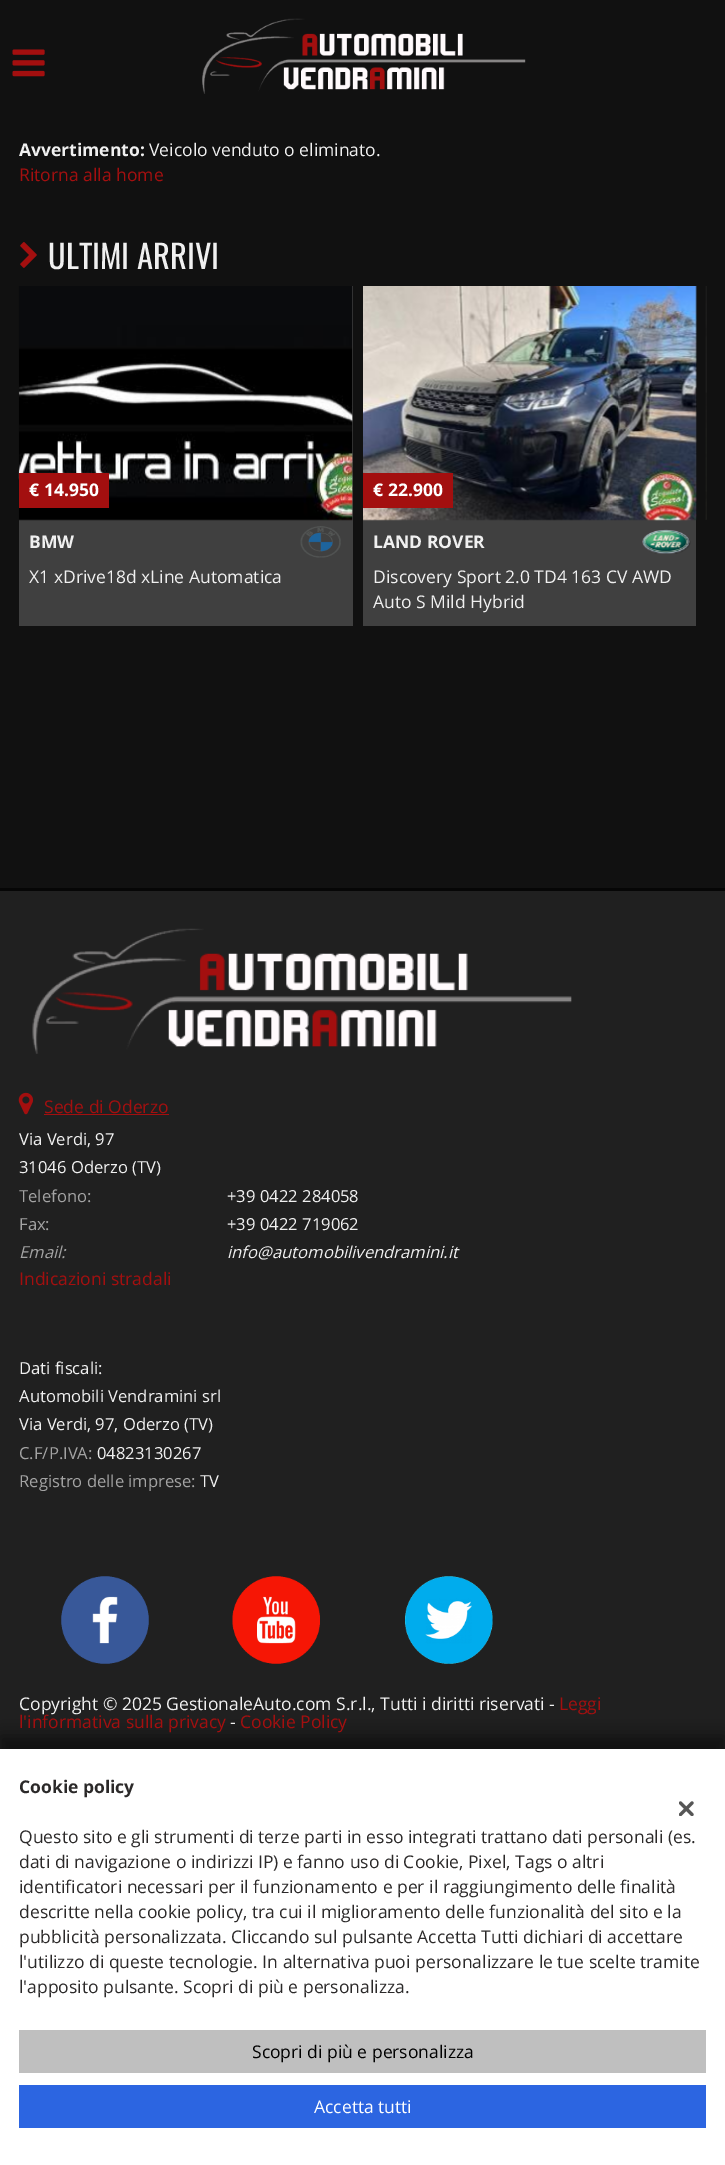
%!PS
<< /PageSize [725 2165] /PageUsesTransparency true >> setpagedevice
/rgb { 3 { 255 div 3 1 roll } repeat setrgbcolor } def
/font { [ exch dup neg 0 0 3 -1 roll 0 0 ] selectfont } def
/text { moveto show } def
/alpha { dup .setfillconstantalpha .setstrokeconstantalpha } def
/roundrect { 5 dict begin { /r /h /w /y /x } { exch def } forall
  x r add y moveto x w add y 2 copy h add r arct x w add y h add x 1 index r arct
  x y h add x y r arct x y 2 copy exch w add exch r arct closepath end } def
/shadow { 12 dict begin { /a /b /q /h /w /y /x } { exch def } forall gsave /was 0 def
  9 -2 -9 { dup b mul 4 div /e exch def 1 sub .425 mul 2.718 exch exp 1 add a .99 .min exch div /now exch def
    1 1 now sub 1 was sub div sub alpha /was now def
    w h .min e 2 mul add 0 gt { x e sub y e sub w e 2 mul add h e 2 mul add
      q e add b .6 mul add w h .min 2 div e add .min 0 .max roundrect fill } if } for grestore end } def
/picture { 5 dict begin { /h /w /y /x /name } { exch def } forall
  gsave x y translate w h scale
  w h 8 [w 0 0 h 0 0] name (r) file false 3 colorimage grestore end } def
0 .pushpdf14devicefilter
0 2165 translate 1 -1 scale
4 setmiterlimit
17 17 17 rgb
0 0 725 2165 rectfill
(img_01.rgb) 12 49 33 28 picture
(img_02.rgb) 202 18 324 76 picture
(img_03.rgb) 20 242 17 26 picture
(img_04.rgb) 705 286 2 234 picture
64 64 64 rgb
19 286 334 340 rectfill
(img_05.rgb) 18 286 335 235 picture
163 15 15 rgb
19 473 90 35 rectfill
(img_06.rgb) 300 526 41 32 picture
64 64 64 rgb
363 286 333 340 rectfill
(img_07.rgb) 363 286 334 235 picture
163 15 15 rgb
363 473 90 35 rectfill
(img_08.rgb) 642 529 49 25 picture
6 6 6 rgb
0 888 725 3 rectfill
32 32 32 rgb
0 891 725 858 rectfill
(img_09.rgb) 32 928 540 126 picture
(img_10.rgb) 18 1092 15 23 picture
163 15 15 rgb
44 1114 125 1 rectfill
(img_11.rgb) 61 1576 88 88 picture
(img_12.rgb) 232 1576 88 88 picture
(img_13.rgb) 405 1576 88 88 picture
0 0 0 rgb
0 1736 725 417 0 7.5 0.5 shadow
255 255 255 rgb
0 1749 725 416 rectfill
191 191 191 rgb
19 2030 687 43 rectfill
44 101 225 rgb
19 2085 687 43 rectfill
(img_14.rgb) 679 1801 15 15 picture
/OpenSans-Bold 17.5 font
240 240 240 rgb
(Avvertimento:) 19 156 text
/OpenSans-Regular 17.5 font
(Veicolo venduto o eliminato.) 149 156 text
163 15 15 rgb
(Ritorna alla home) 19 181 text
/Oswald-Regular 32.5 font
240 240 240 rgb
(ULTIMI ARRIVI) 48 269 text
/OpenSans-Bold 17.5 font
255 255 255 rgb
(€ 14.950) 29 496 text
240 240 240 rgb
(BMW) 29 548 text
/OpenSans-Regular 17.5 font
(X1 xDrive18d xLine Automatica) 29 583 text
/OpenSans-Bold 17.5 font
255 255 255 rgb
(€ 22.900) 373 496 text
240 240 240 rgb
(LAND ROVER) 373 548 text
/OpenSans-Regular 17.5 font
(Discovery Sport 2.0 TD4 163 CV AWD) 373 583 text
(Auto S Mild Hybrid) 373 608 text
163 15 15 rgb
(Sede di Oderzo) 44 1113 text
/OpenSans-Regular 16.6 font
240 240 240 rgb
(Via Verdi, 97) 19 1145 text
(31046 Oderzo \(TV\)) 19 1173 text
163 163 163 rgb
(Telefono:) 19 1202 text
240 240 240 rgb
(+39 0422 284058) 227 1202 text
163 163 163 rgb
(Fax:) 19 1230 text
240 240 240 rgb
(+39 0422 719062) 227 1230 text
/OpenSans-Italic 16.6 font
163 163 163 rgb
(Email:) 19 1258 text
240 240 240 rgb
(info@automobilivendramini.it) 227 1258 text
/OpenSans-Regular 17.5 font
163 15 15 rgb
(Indicazioni stradali) 19 1285 text
/OpenSans-Regular 16.6 font
240 240 240 rgb
(Dati fiscali:) 19 1374 text
(Automobili Vendramini srl) 19 1402 text
(Via Verdi, 97, Oderzo \(TV\)) 19 1430 text
163 163 163 rgb
(C.F/P.IVA:) 19 1459 text
240 240 240 rgb
(04823130267) 97 1459 text
163 163 163 rgb
(Registro delle imprese:) 19 1487 text
240 240 240 rgb
(TV) 200 1487 text
/OpenSans-Regular 17.5 font
(Copyright © 2025 GestionaleAuto.com S.r.l., Tutti i diritti riservati -) 19 1710 text
163 15 15 rgb
(Leggi) 559 1710 text
(l'informativa sulla privacy) 19 1728 text
240 240 240 rgb
(-) 230 1728 text
163 15 15 rgb
(Cookie Policy) 240 1728 text
/OpenSans-Bold 17.5 font
43 41 41 rgb
(Cookie policy) 19 1793 text
/OpenSans-Regular 17.5 font
(Questo sito e gli strumenti di terze parti in esso integrati trattano dati personali \(es.) 19 1843 text
(dati di navigazione o indirizzi IP\) e fanno uso di Cookie, Pixel, Tags o altri) 19 1868 text
(identificatori necessari per il funzionamento e per il raggiungimento delle finalità) 19 1893 text
(descritte nella cookie policy, tra cui il miglioramento delle funzionalità del sito e la) 19 1918 text
(pubblicità personalizzata. Cliccando sul pulsante Accetta Tutti dichiari di accettare) 19 1943 text
(l'utilizzo di queste tecnologie. In alternativa puoi personalizzare le tue scelte tramite) 19 1968 text
(l'apposito pulsante. Scopri di più e personalizza.) 19 1993 text
0 0 0 rgb
(Scopri di più e personalizza) 252 2058 text
255 255 255 rgb
(Accetta tutti) 314 2113 text
.poppdf14devicefilter showpage
